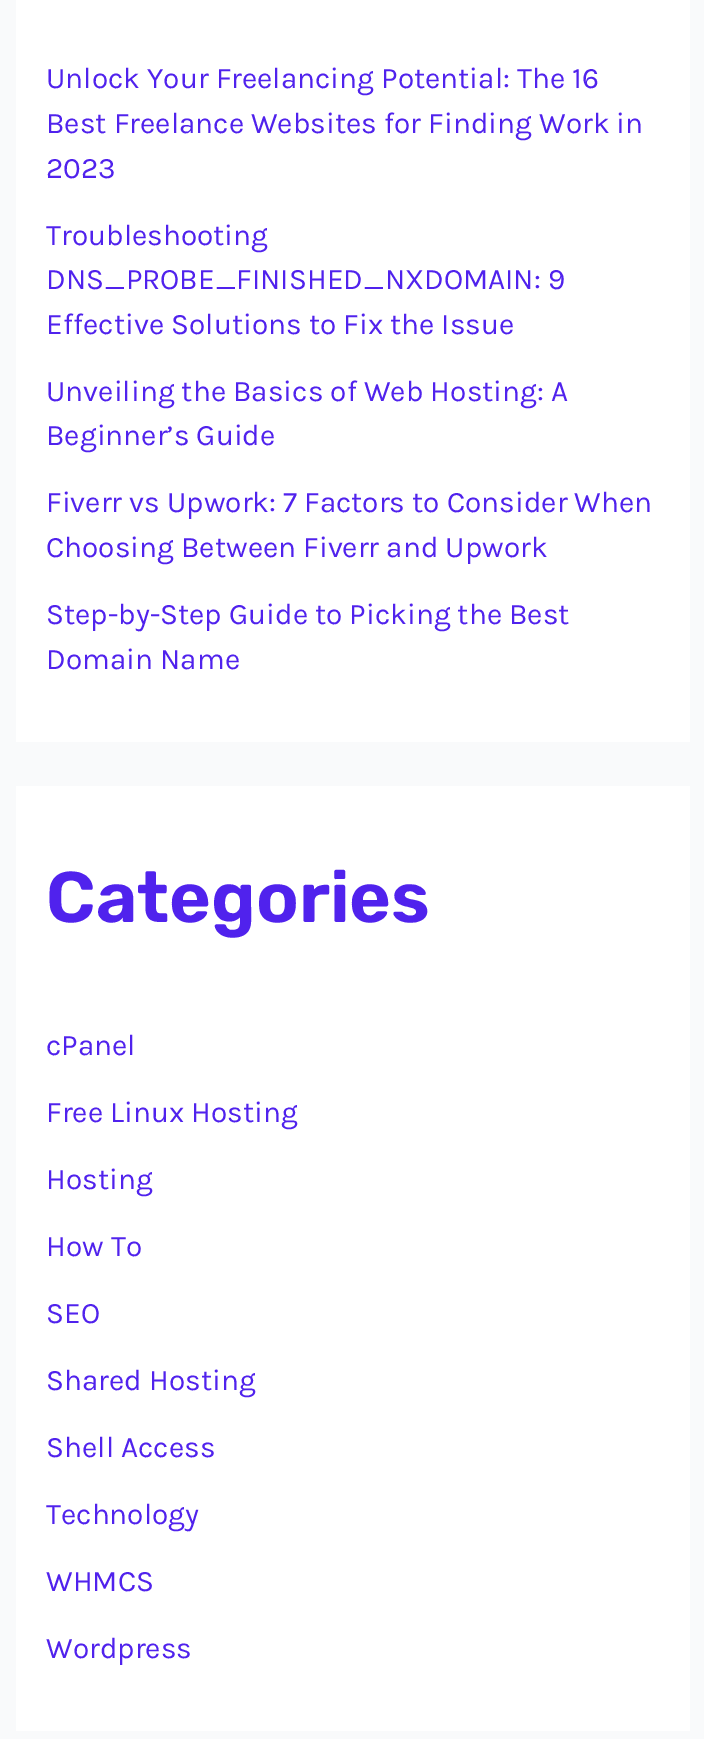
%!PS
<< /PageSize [704 1739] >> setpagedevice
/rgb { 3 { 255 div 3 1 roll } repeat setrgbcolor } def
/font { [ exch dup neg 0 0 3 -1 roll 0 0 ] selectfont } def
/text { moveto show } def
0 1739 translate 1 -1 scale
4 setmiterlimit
249 250 251 rgb
0 0 704 1739 rectfill
255 255 255 rgb
16 0 674 742 rectfill
16 786 674 945 rectfill
/Karla-Regular 29.75 font
80 34 237 rgb
(Unlock Your Freelancing Potential: The 16) 46 88 text
(Best Freelance Websites for Finding Work in) 46 133 text
(2023) 46 178 text
(Troubleshooting) 46 245 text
(DNS_PROBE_FINISHED_NXDOMAIN: 9) 46 289 text
(Effective Solutions to Fix the Issue) 46 334 text
(Unveiling the Basics of Web Hosting: A) 46 401 text
(Beginner’s Guide) 46 445 text
(Fiverr vs Upwork: 7 Factors to Consider When) 46 512 text
(Choosing Between Fiverr and Upwork) 46 557 text
(Step-by-Step Guide to Picking the Best) 46 624 text
(Domain Name) 46 669 text
/Rubik-SemiBold 71.5 font
(Categories) 46 922 text
/Karla-Regular 29.75 font
(cPanel) 46 1055 text
(Free Linux Hosting) 46 1122 text
(Hosting) 46 1189 text
(How To) 46 1256 text
(SEO) 46 1323 text
(Shared Hosting) 46 1390 text
(Shell Access) 46 1457 text
(Technology) 46 1524 text
(WHMCS) 46 1591 text
(Wordpress) 46 1658 text
showpage
